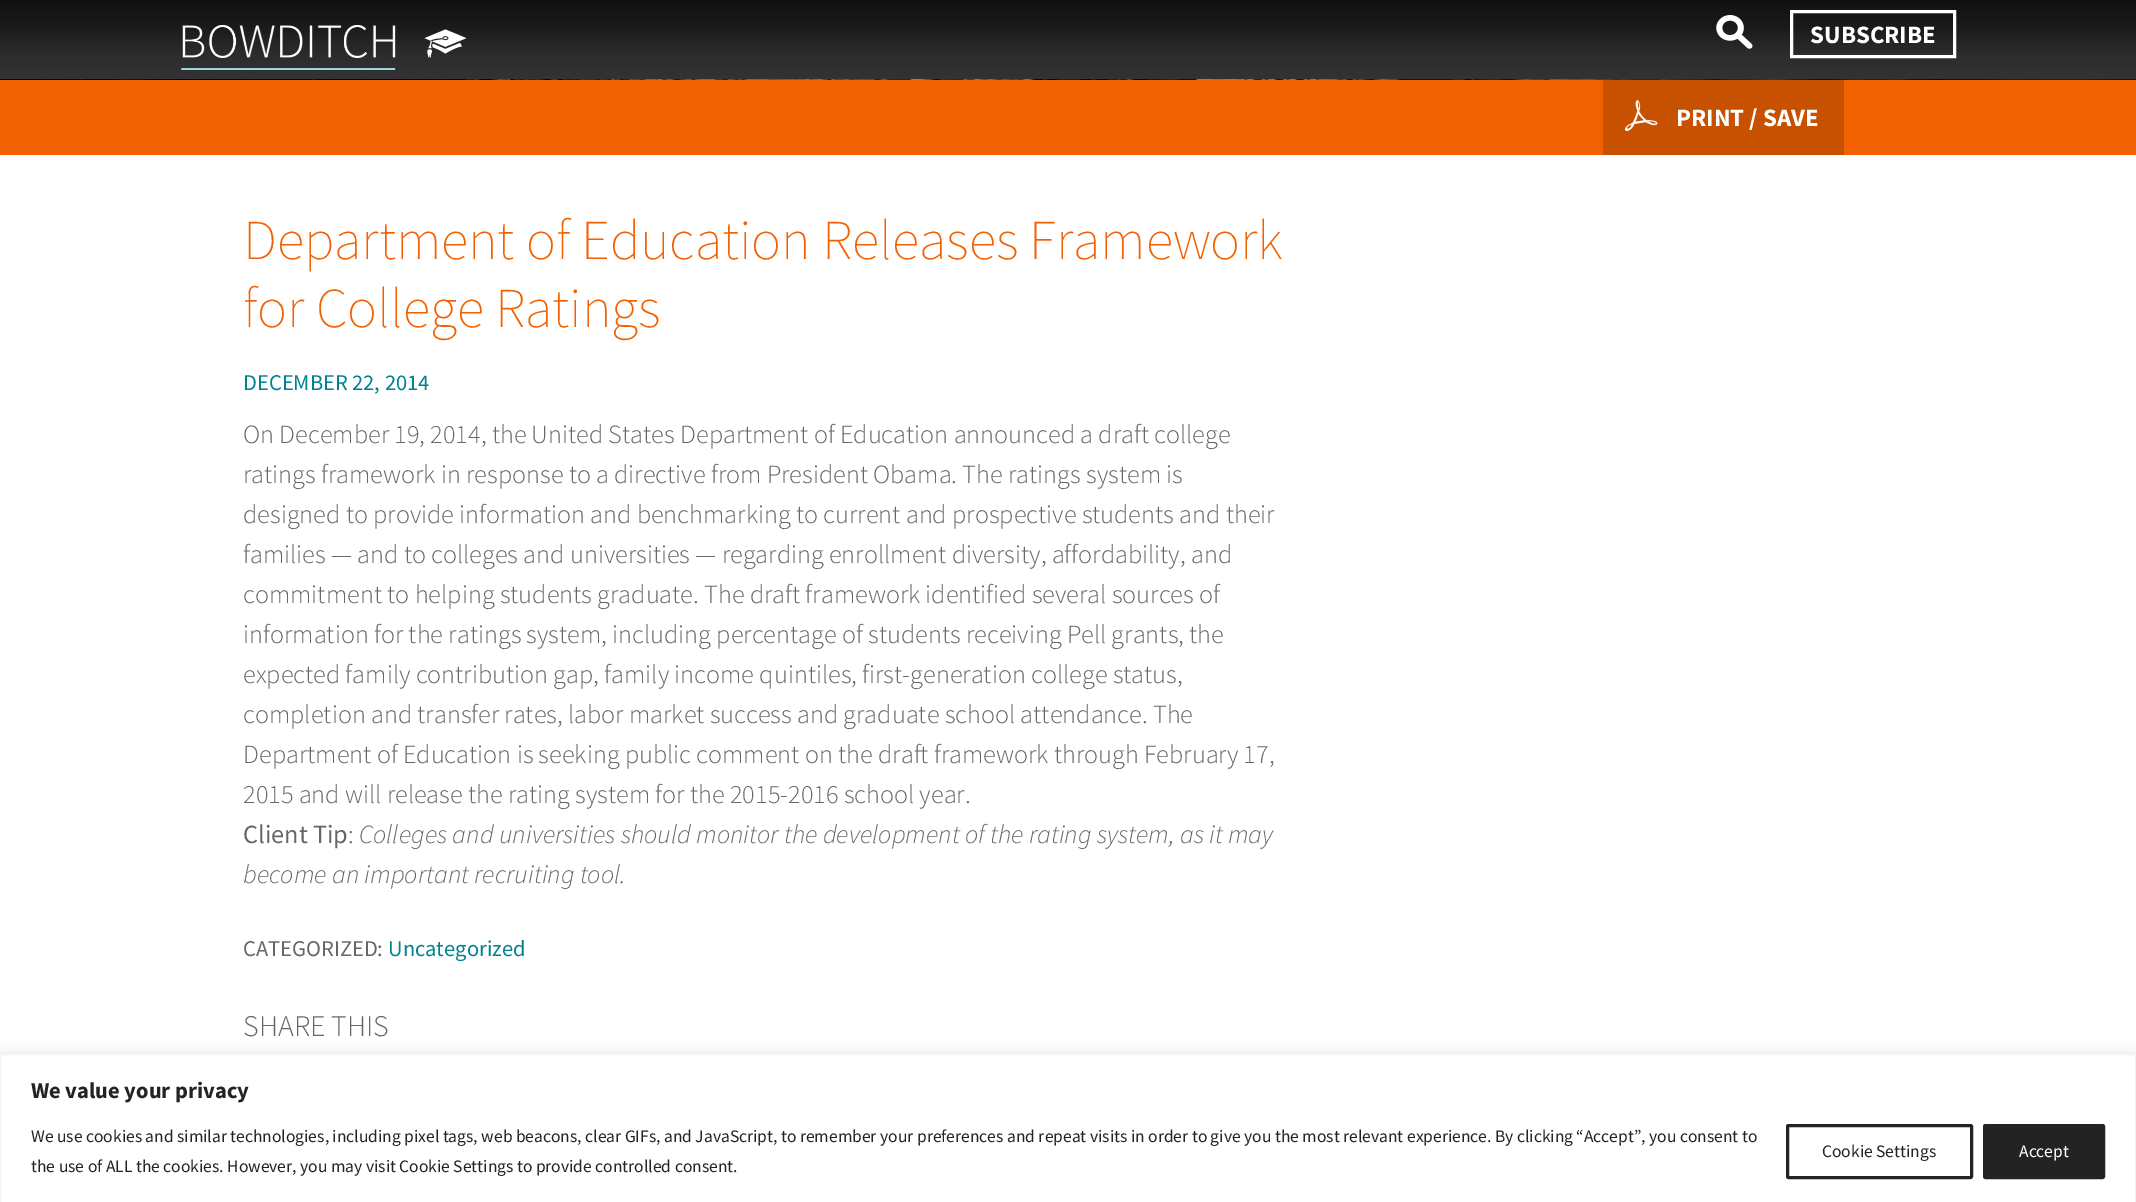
%!PS
<< /PageSize [2136 1202] /PageUsesTransparency true >> setpagedevice
/rgb { 3 { 255 div 3 1 roll } repeat setrgbcolor } def
/font { [ exch dup neg 0 0 3 -1 roll 0 0 ] selectfont } def
/text { moveto show } def
/alpha { dup .setfillconstantalpha .setstrokeconstantalpha } def
/roundrect { 5 dict begin { /r /h /w /y /x } { exch def } forall
  x r add y moveto x w add y 2 copy h add r arct x w add y h add x 1 index r arct
  x y h add x y r arct x y 2 copy exch w add exch r arct closepath end } def
/shadow { 12 dict begin { /a /b /q /h /w /y /x } { exch def } forall gsave /was 0 def
  9 -2 -9 { dup b mul 4 div /e exch def 1 sub .425 mul 2.718 exch exp 1 add a .99 .min exch div /now exch def
    1 1 now sub 1 was sub div sub alpha /was now def
    w h .min e 2 mul add 0 gt { x e sub y e sub w e 2 mul add h e 2 mul add
      q e add b .6 mul add w h .min 2 div e add .min 0 .max roundrect fill } if } for grestore end } def
/picture { 5 dict begin { /h /w /y /x /name } { exch def } forall
  gsave x y translate w h scale
  w h 8 [w 0 0 h 0 0] name (r) file false 3 colorimage grestore end } def
0 .pushpdf14devicefilter
0 1202 translate 1 -1 scale
4 setmiterlimit
255 255 255 rgb
0 0 2136 1202 rectfill
gsave 0 0 moveto 2136 0 rlineto 0 79 rlineto -2136 0 rlineto closepath clip newpath
<< /ShadingType 2 /ColorSpace /DeviceRGB /Coords [1068 0 1068 79] /Extend [true true] /Function << /FunctionType 3 /Domain [0 1] /Functions [<< /FunctionType 2 /Domain [0 1] /C0 [0.067 0.067 0.067] /C1 [0.102 0.102 0.102] /N 1 >> << /FunctionType 2 /Domain [0 1] /C0 [0.102 0.102 0.102] /C1 [0.169 0.169 0.169] /N 1 >> << /FunctionType 2 /Domain [0 1] /C0 [0.169 0.169 0.169] /C1 [0.2 0.2 0.2] /N 1 >>] /Bounds [0.33 0.67] /Encode [0 1 0 1 0 1] >> >> shfill grestore
(img_01.rgb) 181 25 215 45 picture
(img_02.rgb) 424 29 43 29 picture
(img_03.rgb) 1716 15 37 34 picture
3 setlinewidth
1791.5 11.5 163 45 rectstroke
(img_04.rgb) 0 79 2136 1 picture
242 97 1 rgb
0 80 2136 75 rectfill
199 80 1 rgb
1603 80 241 75 rectfill
(img_05.rgb) 1624 100 34 32 picture
172 171 171 rgb
0 1053 2136 148 0 6 0.3 shadow
255 255 255 rgb
0.5 1054.5 moveto 2135 0 rlineto 0 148 rlineto -2135 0 rlineto closepath gsave fill grestore
244 244 244 rgb
1 setlinewidth
stroke
35 35 35 rgb
3 setlinewidth
1787.5 1125.5 184 52 1 roundrect stroke
1984.5 1125.5 119 52 1 roundrect gsave fill grestore
stroke
/SourceSansPro-Bold 25 font
255 255 255 rgb
(SUBSCRIBE) 1810 43 text
(PRINT / SAVE) 1676 126 text
/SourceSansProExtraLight-ExtraLight 56.25 font
242 97 1 rgb
(Department of Education Releases Framework) 243 259 text
(for College Ratings) 243 327 text
/SourceSansPro-Regular 22.5 font
0 130 145 rgb
(DECEMBER 22, 2014) 243 390 text
/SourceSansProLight-Light 26.25 font
102 102 102 rgb
(On December 19, 2014, the United States Department of Education announced a draft college) 243 443 text
(ratings framework in response to a directive from President Obama. The ratings system is) 243 483 text
(designed to provide information and benchmarking to current and prospective students and their) 243 523 text
(families — and to colleges and universities — regarding enrollment diversity, affordability, and) 243 563 text
(commitment to helping students graduate. The draft framework identified several sources of) 243 603 text
(information for the ratings system, including percentage of students receiving Pell grants, the) 243 643 text
(expected family contribution gap, family income quintiles, first-generation college status,) 243 683 text
(completion and transfer rates, labor market success and graduate school attendance. The) 243 723 text
(Department of Education is seeking public comment on the draft framework through February 17,) 243 763 text
(2015 and will release the rating system for the 2015-2016 school year.) 243 803 text
/SourceSansPro-Regular 26.25 font
(Client Tip) 243 843 text
/SourceSansProLight-Light 26.25 font
(:) 348 843 text
/SourceSansProLight-LightItalic 26.25 font
(Colleges and universities should monitor the development of the rating system, as it may) 359 843 text
(become an important recruiting tool.) 243 883 text
/SourceSansPro-Regular 22.5 font
(CATEGORIZED:) 243 956 text
0 130 145 rgb
(Uncategorized) 388 956 text
/SourceSansProLight-Light 30 font
102 102 102 rgb
(SHARE THIS) 243 1036 text
/SourceSansPro-Bold 22.5 font
35 35 35 rgb
(We value your privacy) 31 1098 text
/SourceSansPro-Regular 17.5 font
(We use cookies and similar technologies, including pixel tags, web beacons, clear GIFs, and JavaScript, to remember your preferences and repeat visits in order to give you the most relevant experience. By clicking “Accept”, you consent to) 31 1142 text
(the use of ALL the cookies. However, you may visit Cookie Settings to provide controlled consent.) 31 1172 text
(Cookie Settings) 1822 1157 text
255 255 255 rgb
(Accept) 2019 1157 text
.poppdf14devicefilter showpage
